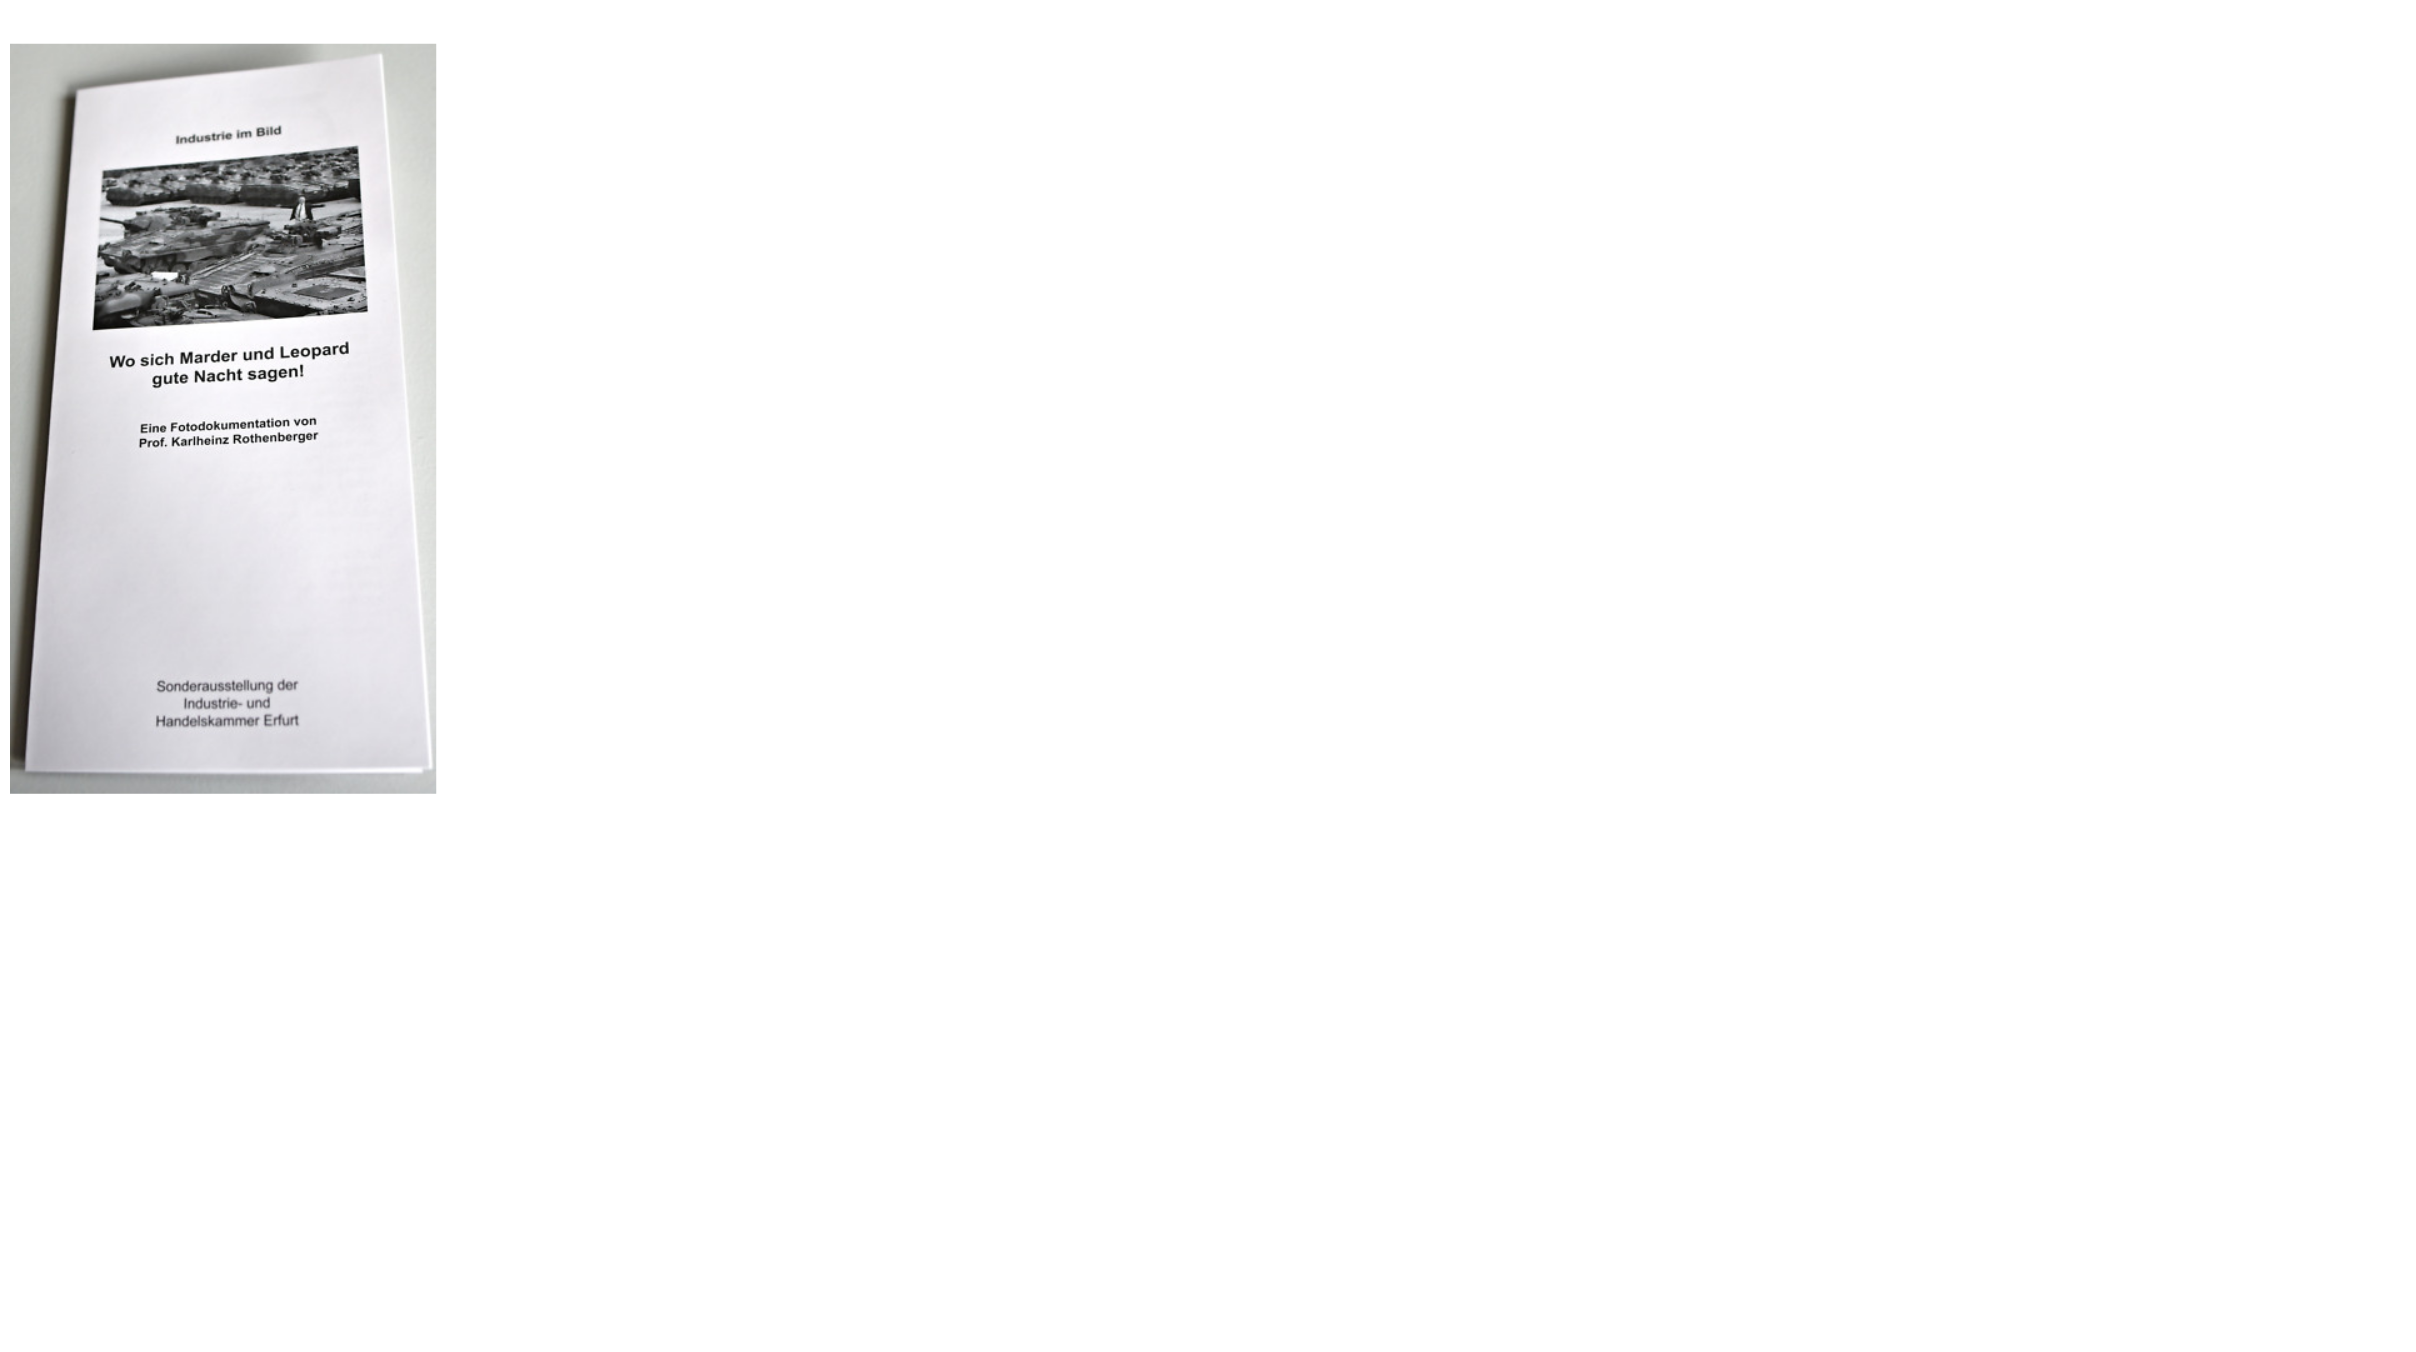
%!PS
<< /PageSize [2416 1352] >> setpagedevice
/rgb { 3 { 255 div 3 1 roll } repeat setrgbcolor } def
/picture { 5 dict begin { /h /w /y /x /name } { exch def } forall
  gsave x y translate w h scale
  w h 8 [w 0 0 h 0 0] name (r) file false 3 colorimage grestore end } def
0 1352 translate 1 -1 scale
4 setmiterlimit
255 255 255 rgb
0 0 2416 1352 rectfill
(img_01.rgb) 10 43 427 751 picture
showpage
